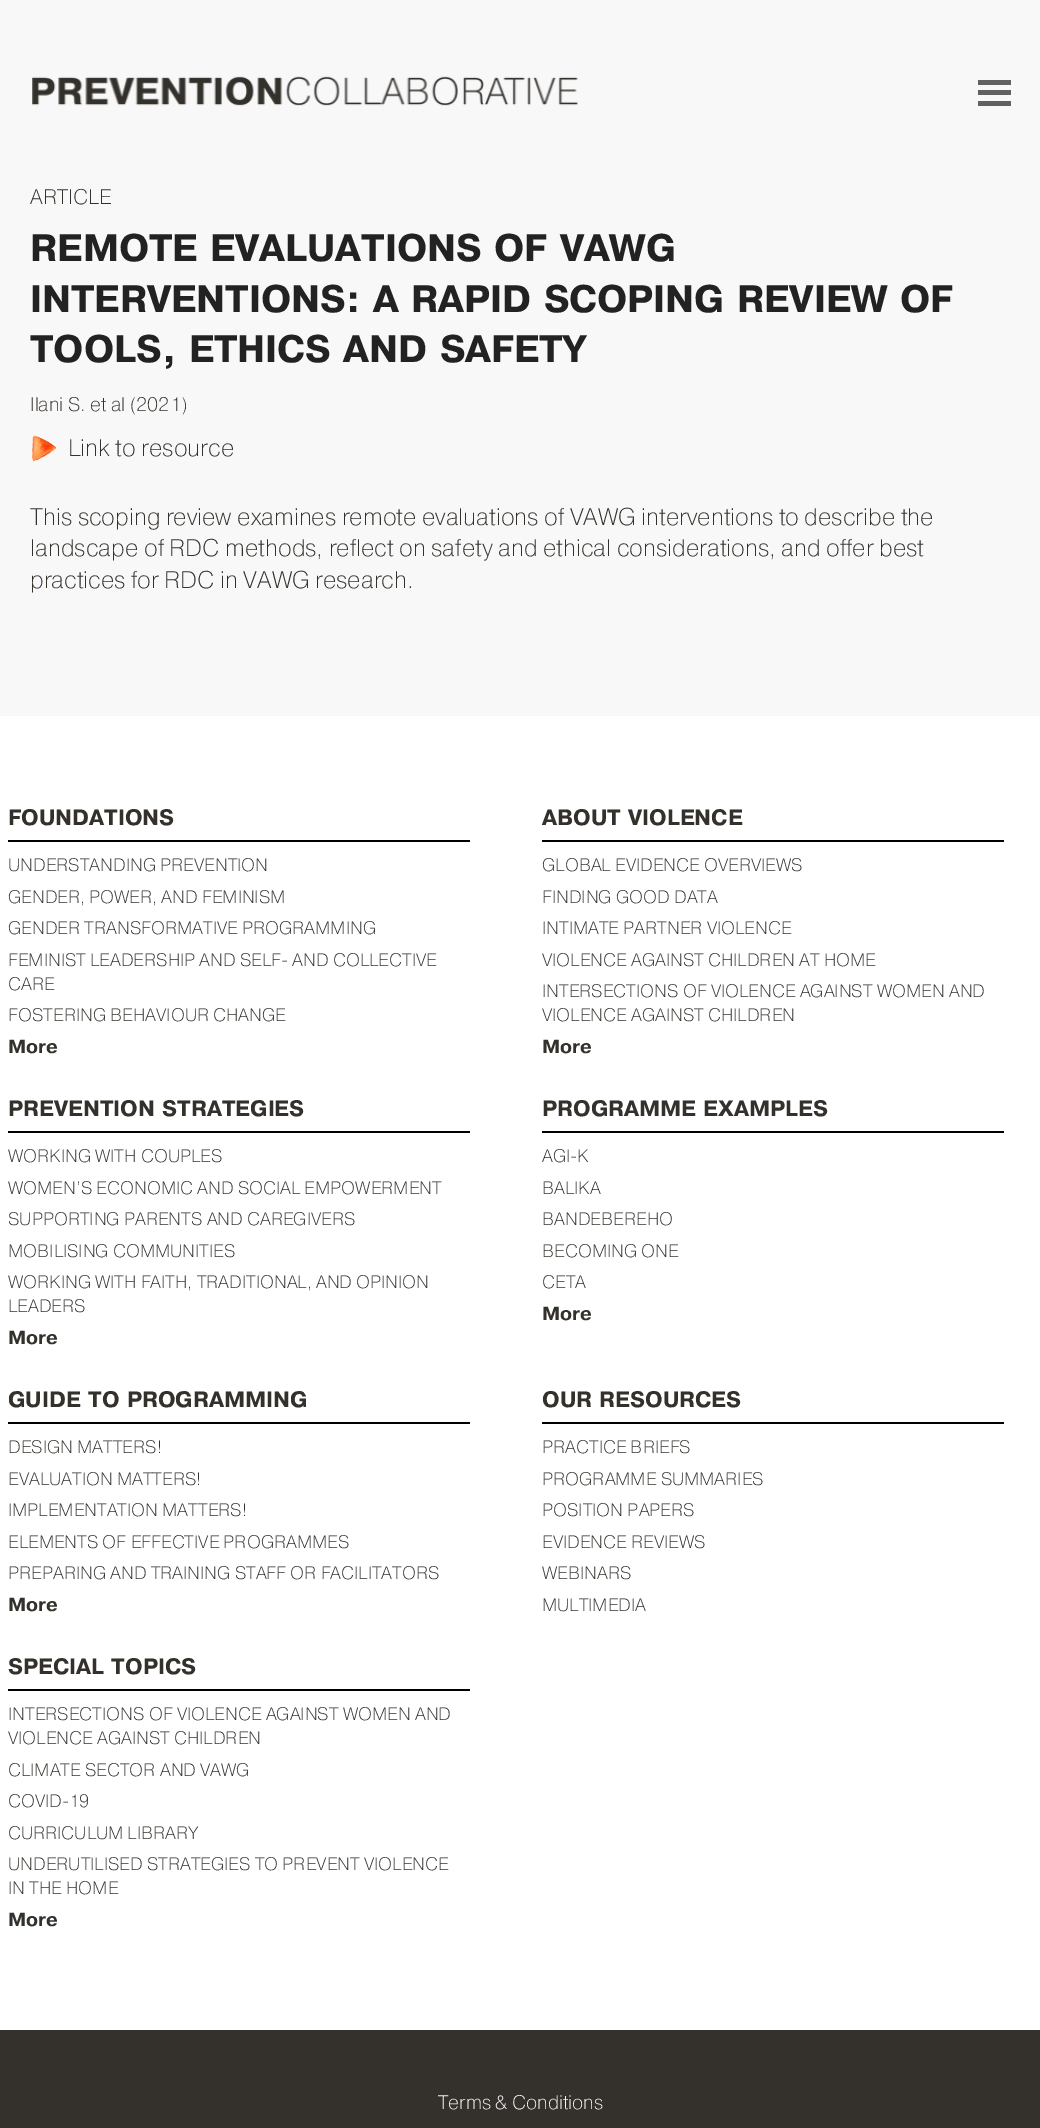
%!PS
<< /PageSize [1040 2128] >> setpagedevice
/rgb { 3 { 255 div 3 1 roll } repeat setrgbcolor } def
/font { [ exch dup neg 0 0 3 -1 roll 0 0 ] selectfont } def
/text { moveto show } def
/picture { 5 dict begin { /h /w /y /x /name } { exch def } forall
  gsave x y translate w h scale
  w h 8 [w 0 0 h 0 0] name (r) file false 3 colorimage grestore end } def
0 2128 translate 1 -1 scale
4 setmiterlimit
248 248 248 rgb
0 0 1040 2128 rectfill
(img_01.rgb) 32 76 546 30 picture
97 97 97 rgb
978 90 33 5 rectfill
978 80 33 5 rectfill
978 101 33 5 rectfill
(img_02.rgb) 32 435 25 27 picture
255 255 255 rgb
0 716 1040 1314 rectfill
0 0 0 rgb
8 840 462 2 rectfill
542 840 462 2 rectfill
8 1131 462 2 rectfill
542 1131 462 2 rectfill
8 1422 462 2 rectfill
542 1422 462 2 rectfill
8 1689 462 2 rectfill
52 49 45 rgb
0 2030 1040 98 rectfill
/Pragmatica-ExtraLight 21 font
(ARTICLE) 30 204 text
/Pragmatica-Bold 36 font
34 34 34 rgb
(REMOTE EVALUATIONS OF VAWG) 30 261 text
(INTERVENTIONS: A RAPID SCOPING REVIEW OF) 30 312 text
(TOOLS, ETHICS AND SAFETY) 30 362 text
/Pragmatica-ExtraLight 19.5 font
52 49 45 rgb
(Ilani S. et al \(2021\)) 30 411 text
/Pragmatica-ExtraLight 24 font
(Link to resource) 68 456 text
(This scoping review examines remote evaluations of VAWG interventions to describe the) 30 525 text
(landscape of RDC methods, reflect on safety and ethical considerations, and offer best) 30 556 text
(practices for RDC in VAWG research.) 30 588 text
/Pragmatica-Bold 21 font
(FOUNDATIONS) 8 825 text
/Pragmatica-ExtraLight 18 font
(UNDERSTANDING PREVENTION) 8 871 text
(GENDER, POWER, AND FEMINISM) 8 903 text
(GENDER TRANSFORMATIVE PROGRAMMING) 8 934 text
(FEMINIST LEADERSHIP AND SELF- AND COLLECTIVE) 8 966 text
(CARE) 8 990 text
(FOSTERING BEHAVIOUR CHANGE) 8 1021 text
/Pragmatica-Bold 18 font
(More) 8 1053 text
/Pragmatica-Bold 21 font
(ABOUT VIOLENCE) 542 825 text
/Pragmatica-ExtraLight 18 font
(GLOBAL EVIDENCE OVERVIEWS) 542 871 text
(FINDING GOOD DATA) 542 903 text
(INTIMATE PARTNER VIOLENCE) 542 934 text
(VIOLENCE AGAINST CHILDREN AT HOME) 542 966 text
(INTERSECTIONS OF VIOLENCE AGAINST WOMEN AND) 542 997 text
(VIOLENCE AGAINST CHILDREN) 542 1021 text
/Pragmatica-Bold 18 font
(More) 542 1053 text
/Pragmatica-Bold 21 font
(PREVENTION STRATEGIES) 8 1116 text
/Pragmatica-ExtraLight 18 font
(WORKING WITH COUPLES) 8 1162 text
(WOMEN’S ECONOMIC AND SOCIAL EMPOWERMENT) 8 1194 text
(SUPPORTING PARENTS AND CAREGIVERS) 8 1225 text
(MOBILISING COMMUNITIES) 8 1257 text
(WORKING WITH FAITH, TRADITIONAL, AND OPINION) 8 1288 text
(LEADERS) 8 1312 text
/Pragmatica-Bold 18 font
(More) 8 1344 text
/Pragmatica-Bold 21 font
(PROGRAMME EXAMPLES) 542 1116 text
/Pragmatica-ExtraLight 18 font
(AGI-K) 542 1162 text
(BALIKA) 542 1194 text
(BANDEBEREHO) 542 1225 text
(BECOMING ONE) 542 1257 text
(CETA) 542 1288 text
/Pragmatica-Bold 18 font
(More) 542 1320 text
/Pragmatica-Bold 21 font
(GUIDE TO PROGRAMMING) 8 1407 text
/Pragmatica-ExtraLight 18 font
(DESIGN MATTERS!) 8 1453 text
(EVALUATION MATTERS!) 8 1485 text
(IMPLEMENTATION MATTERS!) 8 1516 text
(ELEMENTS OF EFFECTIVE PROGRAMMES) 8 1548 text
(PREPARING AND TRAINING STAFF OR FACILITATORS) 8 1579 text
/Pragmatica-Bold 18 font
(More) 8 1611 text
/Pragmatica-Bold 21 font
(OUR RESOURCES) 542 1407 text
/Pragmatica-ExtraLight 18 font
(PRACTICE BRIEFS) 542 1453 text
(PROGRAMME SUMMARIES) 542 1485 text
(POSITION PAPERS) 542 1516 text
(EVIDENCE REVIEWS) 542 1548 text
(WEBINARS) 542 1579 text
(MULTIMEDIA) 542 1611 text
/Pragmatica-Bold 21 font
(SPECIAL TOPICS) 8 1674 text
/Pragmatica-ExtraLight 18 font
(INTERSECTIONS OF VIOLENCE AGAINST WOMEN AND) 8 1720 text
(VIOLENCE AGAINST CHILDREN) 8 1744 text
(CLIMATE SECTOR AND VAWG) 8 1776 text
(COVID-19) 8 1807 text
(CURRICULUM LIBRARY) 8 1839 text
(UNDERUTILISED STRATEGIES TO PREVENT VIOLENCE) 8 1870 text
(IN THE HOME) 8 1894 text
/Pragmatica-Bold 18 font
(More) 8 1926 text
/Pragmatica-ExtraLight 19.5 font
248 248 248 rgb
(Terms & Conditions) 438 2109 text
showpage
